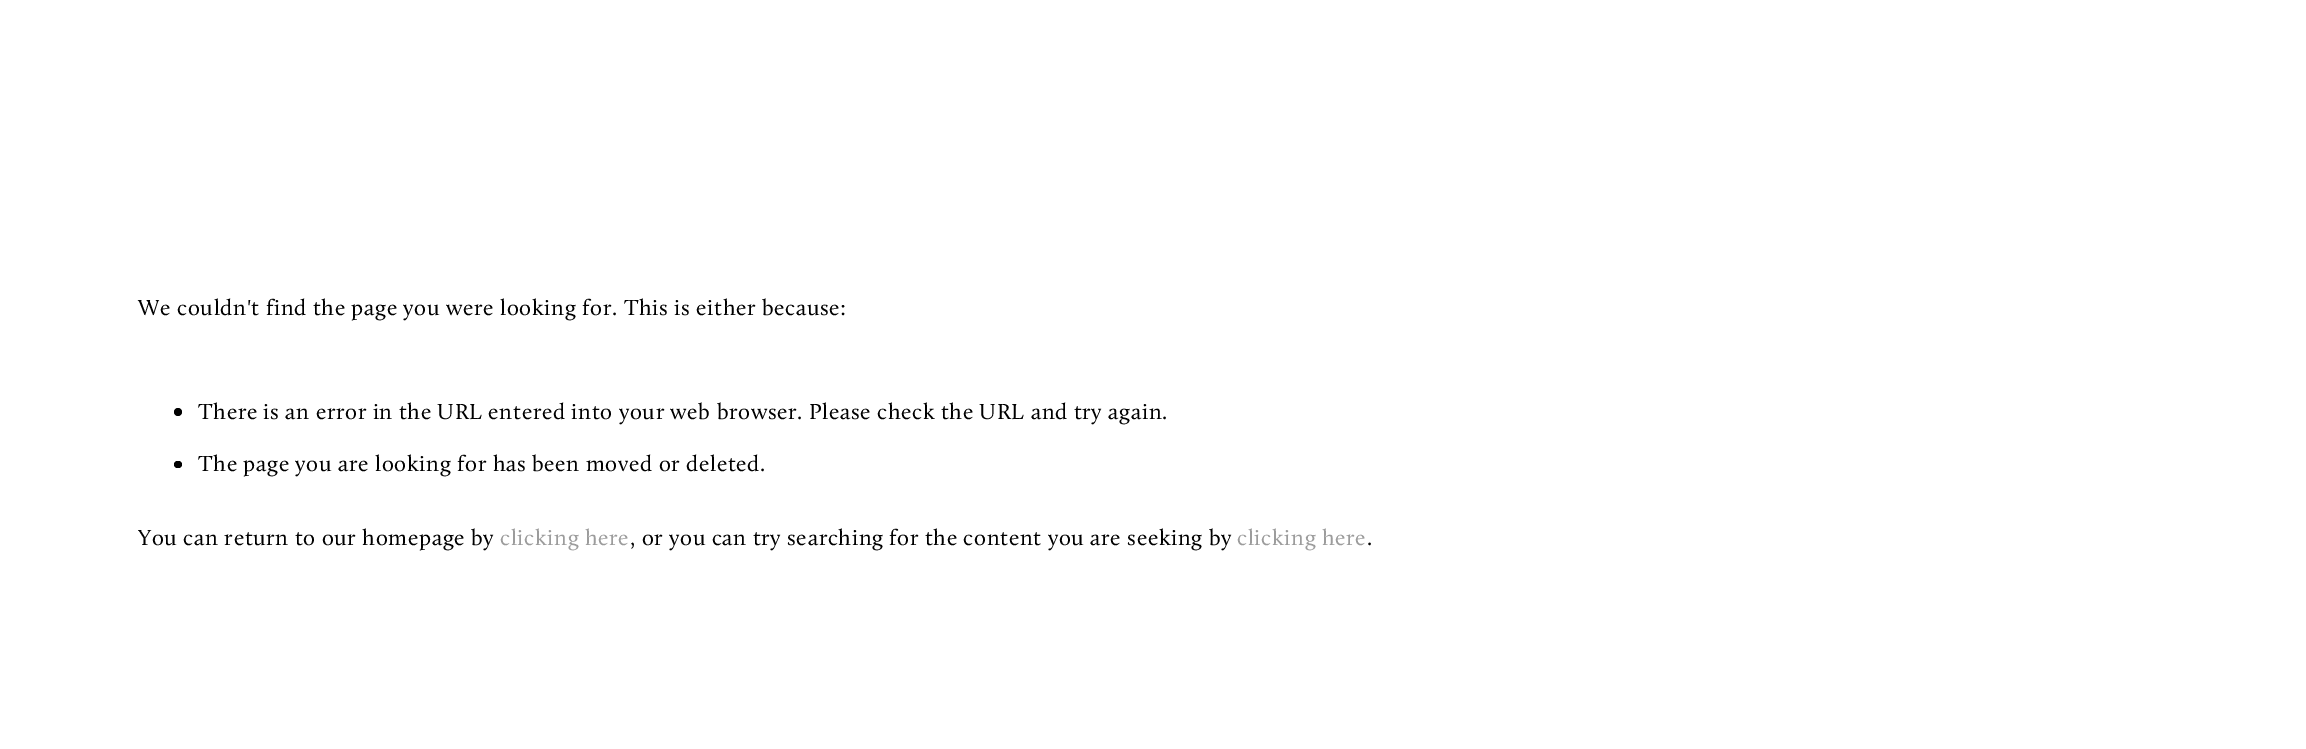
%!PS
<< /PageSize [2306 749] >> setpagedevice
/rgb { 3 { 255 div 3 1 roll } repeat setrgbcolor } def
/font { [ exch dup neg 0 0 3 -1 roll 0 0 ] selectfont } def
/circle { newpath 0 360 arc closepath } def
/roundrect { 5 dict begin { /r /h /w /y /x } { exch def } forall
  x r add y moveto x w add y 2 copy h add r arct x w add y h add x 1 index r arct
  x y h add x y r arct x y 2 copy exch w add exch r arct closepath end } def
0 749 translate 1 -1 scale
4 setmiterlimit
255 255 255 rgb
0 0 2306 749 rectfill
0 0 0 rgb
178 412 4 circle fill
174 461 8 7 3.5 roundrect fill
/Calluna-Regular 22.5 font
138 315 moveto 0.68 0 (We couldn't find the page you were looking for. This is either because:) ashow
198 419 moveto 0.68 0 (There is an error in the URL entered into your web browser. Please check the URL and try again.) ashow
198 471 moveto 0.68 0 (The page you are looking for has been moved or deleted.) ashow
138 545 moveto 0.68 0 (You can return to our homepage by) ashow
156 156 156 rgb
500 545 moveto 0.68 0 (clicking here) ashow
0 0 0 rgb
630 545 moveto 0.68 0 (, or you can try searching for the content you are seeking by) ashow
156 156 156 rgb
1237 545 moveto 0.68 0 (clicking here) ashow
0 0 0 rgb
1367 545 moveto 0.68 0 (.) ashow
showpage
